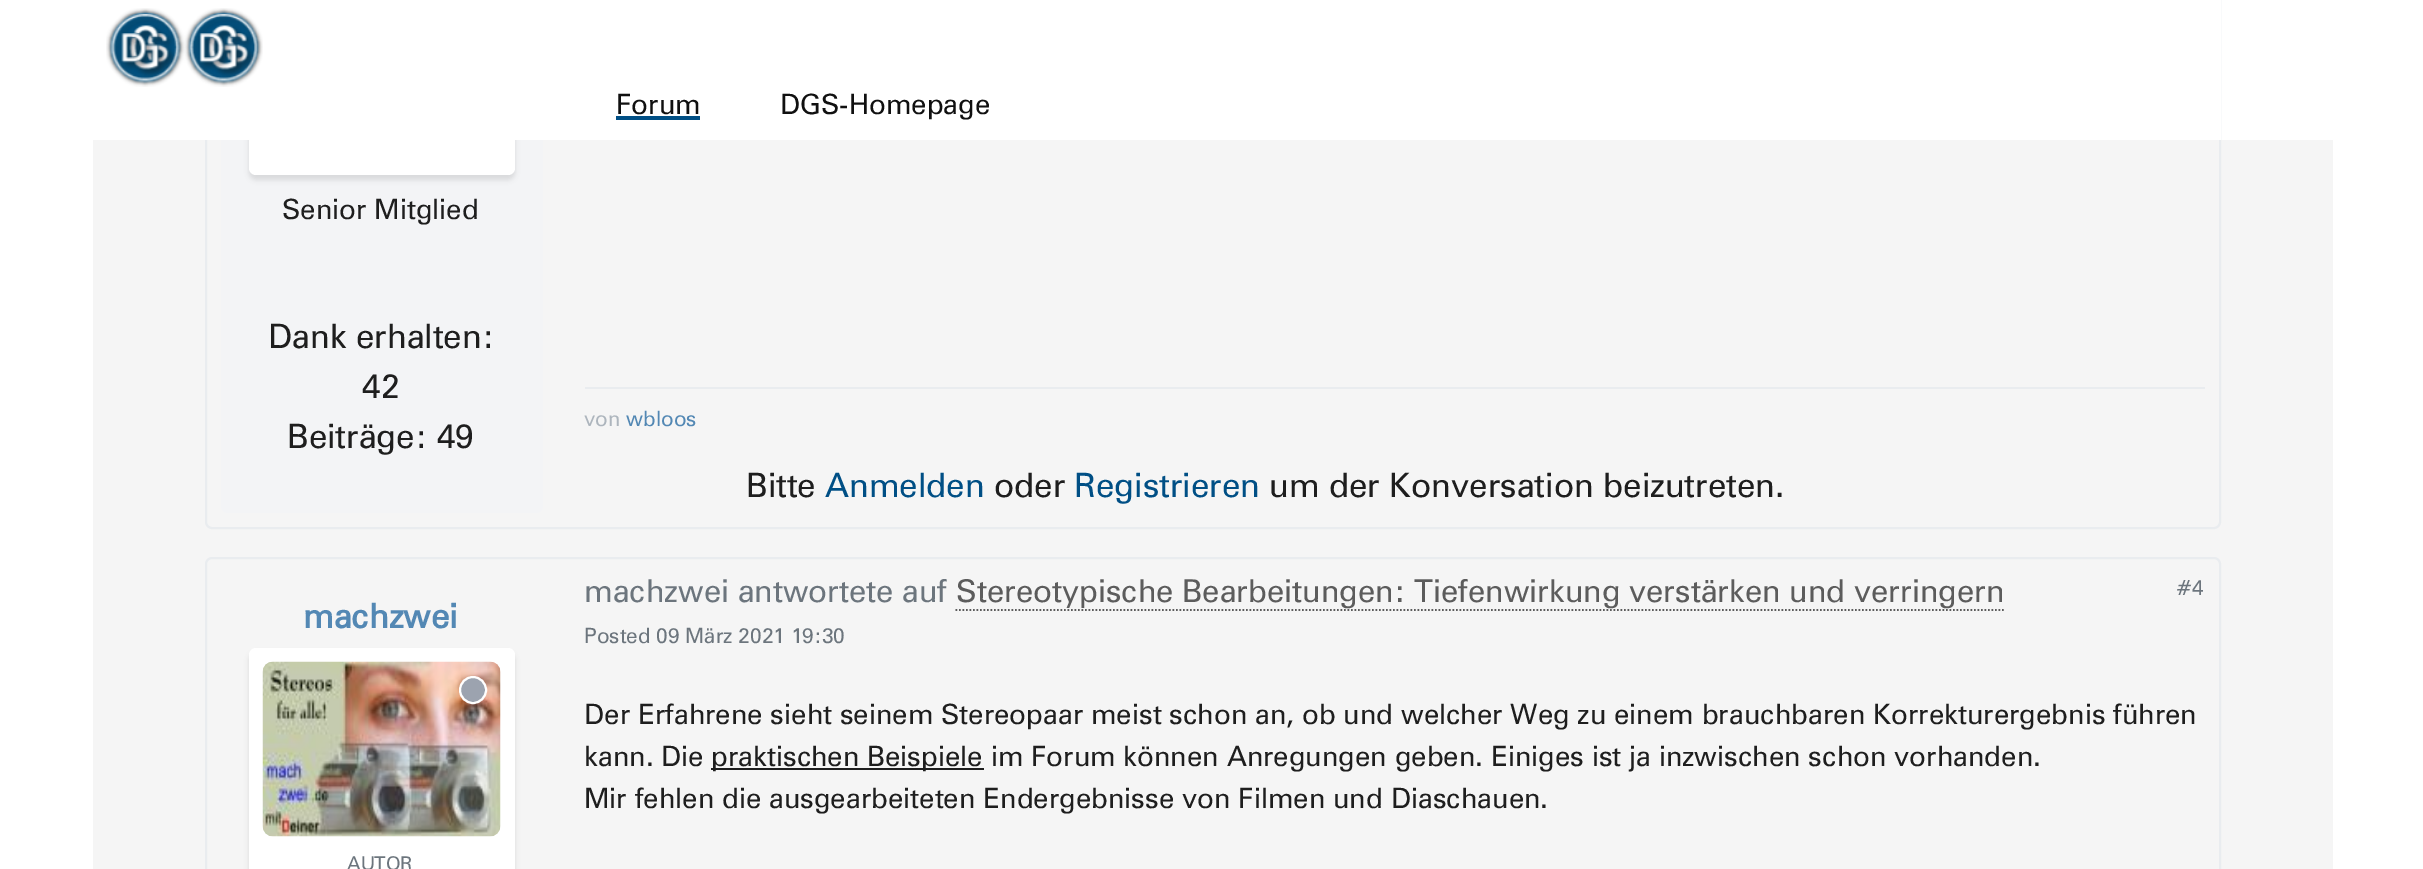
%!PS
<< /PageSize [2423 869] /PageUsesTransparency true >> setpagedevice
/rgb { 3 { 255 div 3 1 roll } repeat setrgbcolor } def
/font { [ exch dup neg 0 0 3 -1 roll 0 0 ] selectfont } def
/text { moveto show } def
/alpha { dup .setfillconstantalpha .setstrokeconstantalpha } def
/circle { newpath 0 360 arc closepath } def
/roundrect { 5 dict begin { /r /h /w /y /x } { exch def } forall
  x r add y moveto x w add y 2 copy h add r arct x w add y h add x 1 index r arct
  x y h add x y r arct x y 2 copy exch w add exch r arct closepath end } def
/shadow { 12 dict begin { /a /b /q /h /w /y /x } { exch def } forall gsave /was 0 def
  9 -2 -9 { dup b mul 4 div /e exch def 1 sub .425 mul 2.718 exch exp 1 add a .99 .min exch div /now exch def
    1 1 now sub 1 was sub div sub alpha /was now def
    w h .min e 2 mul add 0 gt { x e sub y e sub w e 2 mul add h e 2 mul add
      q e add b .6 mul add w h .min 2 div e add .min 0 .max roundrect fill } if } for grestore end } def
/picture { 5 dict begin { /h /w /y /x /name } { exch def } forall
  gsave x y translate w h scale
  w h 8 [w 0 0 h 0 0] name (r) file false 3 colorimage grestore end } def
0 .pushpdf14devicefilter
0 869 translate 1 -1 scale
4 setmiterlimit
255 255 255 rgb
0 0 2423 869 rectfill
245 245 245 rgb
93 140 2240 729 rectfill
233 236 239 rgb
2 setlinewidth
206 -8 2014 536 6 roundrect stroke
243 244 246 rgb
221 -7 322 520 7 roundrect fill
0 0 0 rgb
249 -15 266 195 7 2.5 0.1 shadow
255 255 255 rgb
249 -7 266 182 7 roundrect fill
205 0 2016 140 rectfill
(img_01.rgb) 106 8 157 79 picture
0 79 133 rgb
616 116 84 4 rectfill
233 236 239 rgb
585 387 1620 2 rectfill
206 558 2014 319 6 roundrect stroke
0 0 0 rgb
249 653 266 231 7 2.5 0.1 shadow
255 255 255 rgb
249 648 266 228 7 roundrect fill
(img_02.rgb) 262 661 239 176 picture
156 163 175 rgb
473 690 13 circle gsave fill grestore
255 255 255 rgb
stroke
92 92 92 rgb
1.8 setlinewidth
[1.75 1.75] 0 setdash
955.5 610 moveto 1048.5 0 rlineto stroke
30 30 30 rgb
711 768 273 2 rectfill
/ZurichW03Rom-Regular 28 font
16 16 16 rgb
(Forum) 616 114 text
(DGS-Homepage) 780 114 text
30 30 30 rgb
(Senior Mitglied) 282 219 text
/ZurichW03Rom-Regular 33.6 font
(Dank erhalten:) 268 348 text
(42) 362 398 text
(Beiträge: 49) 287 448 text
/ZurichW03Rom-Regular 21 font
173 181 189 rgb
(von) 584 426 text
83 136 180 rgb
(wbloos) 626 426 text
/ZurichW03Rom-Regular 33.6 font
30 30 30 rgb
(Bitte) 746 497 text
0 79 133 rgb
(Anmelden) 825 497 text
30 30 30 rgb
(oder) 994 497 text
0 79 133 rgb
(Registrieren) 1074 497 text
30 30 30 rgb
(um der Konversation beizutreten.) 1269 497 text
/ZurichW03Rom-Bold 33.6 font
83 136 180 rgb
(machzwei) 303 628 text
/ZurichW03Rom-Regular 19 font
108 117 125 rgb
(AUTOR) 347 870 text
/ZurichW03Rom-Regular 31.5 font
(machzwei antwortete auf) 584 602 text
92 92 92 rgb
(Stereotypische Bearbeitungen: Tiefenwirkung verstärken und verringern) 956 602 text
/ZurichW03Rom-Regular 21 font
108 117 125 rgb
(#4) 2176 595 text
(Posted 09 März 2021 19:30) 584 643 text
/ZurichW03Rom-Regular 28 font
30 30 30 rgb
(Der Erfahrene sieht seinem Stereopaar meist schon an, ob und welcher Weg zu einem brauchbaren Korrekturergebnis führen) 584 724 text
(kann. Die) 584 766 text
(praktischen Beispiele im Forum können Anregungen geben. Einiges ist ja inzwischen schon vorhanden.) 711 766 text
(Mir fehlen die ausgearbeiteten Endergebnisse von Filmen und Diaschauen.) 584 808 text
.poppdf14devicefilter showpage
